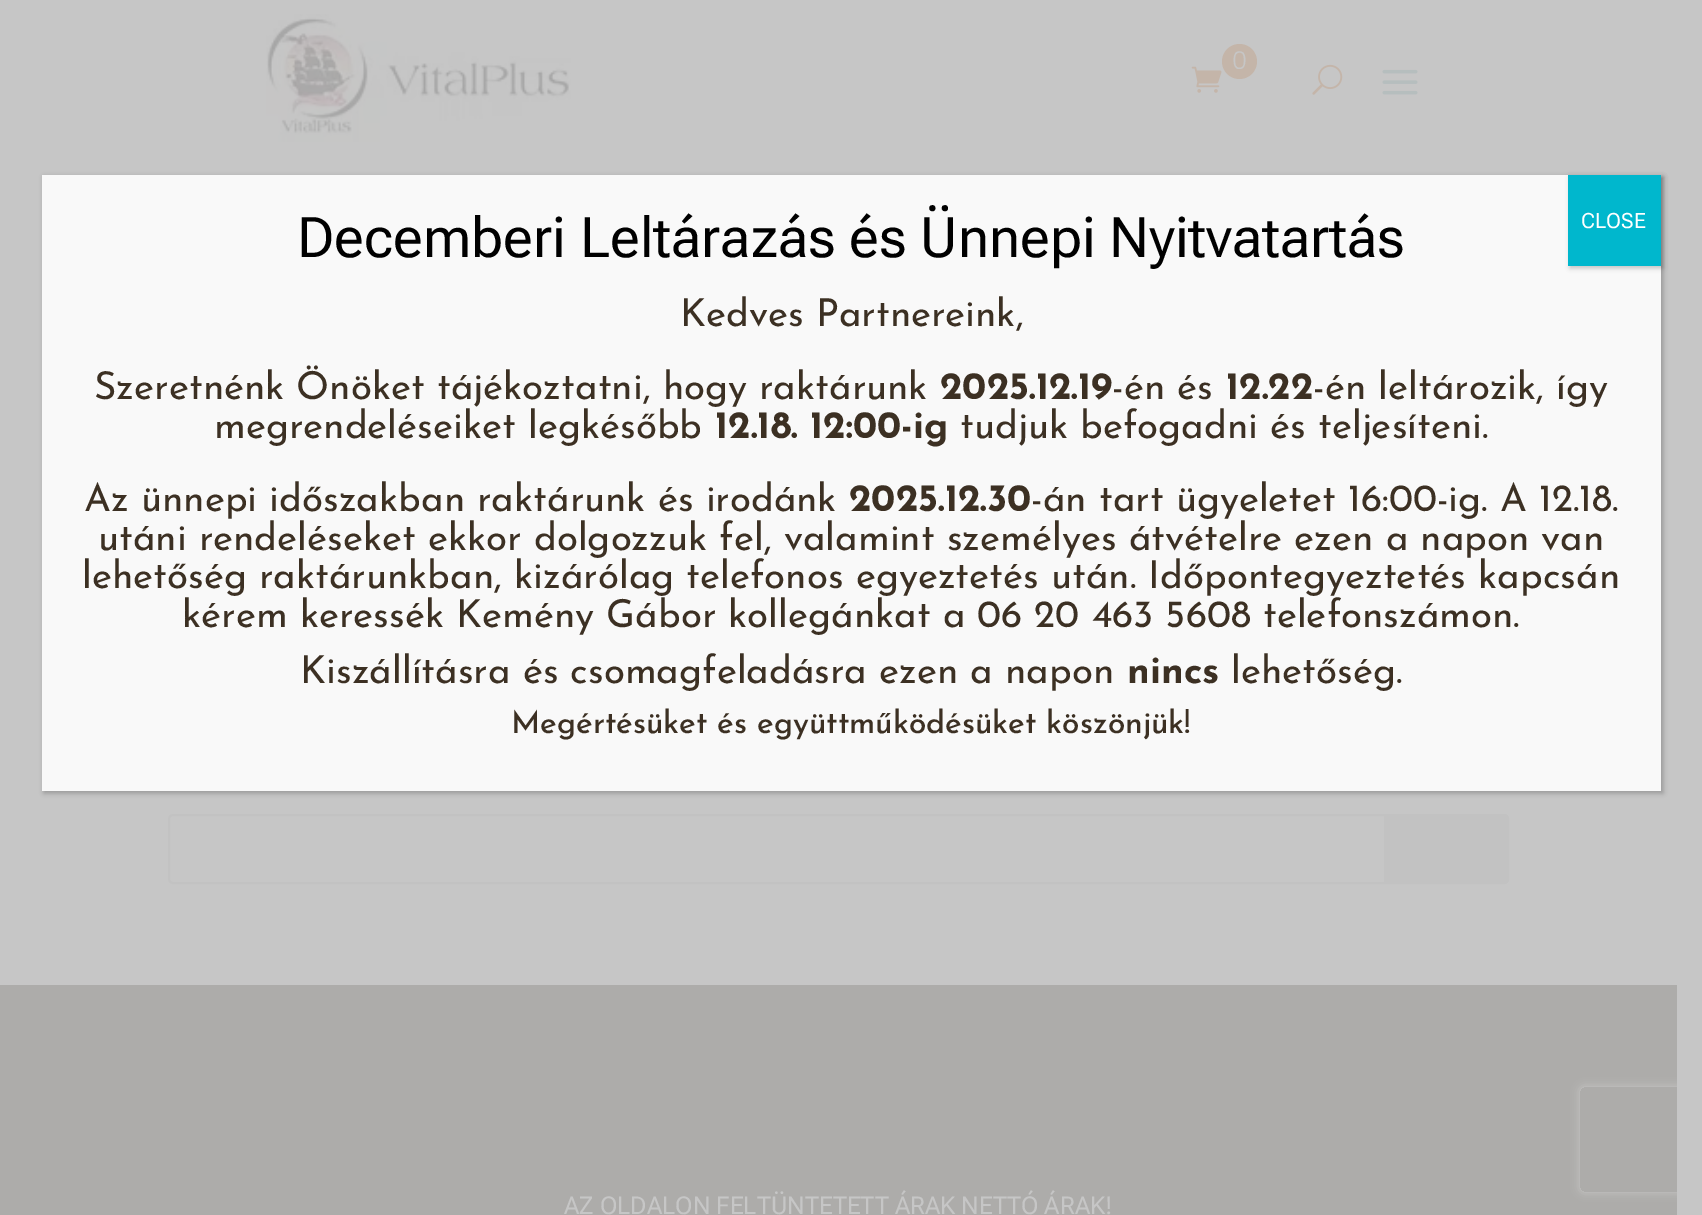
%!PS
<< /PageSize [1702 1215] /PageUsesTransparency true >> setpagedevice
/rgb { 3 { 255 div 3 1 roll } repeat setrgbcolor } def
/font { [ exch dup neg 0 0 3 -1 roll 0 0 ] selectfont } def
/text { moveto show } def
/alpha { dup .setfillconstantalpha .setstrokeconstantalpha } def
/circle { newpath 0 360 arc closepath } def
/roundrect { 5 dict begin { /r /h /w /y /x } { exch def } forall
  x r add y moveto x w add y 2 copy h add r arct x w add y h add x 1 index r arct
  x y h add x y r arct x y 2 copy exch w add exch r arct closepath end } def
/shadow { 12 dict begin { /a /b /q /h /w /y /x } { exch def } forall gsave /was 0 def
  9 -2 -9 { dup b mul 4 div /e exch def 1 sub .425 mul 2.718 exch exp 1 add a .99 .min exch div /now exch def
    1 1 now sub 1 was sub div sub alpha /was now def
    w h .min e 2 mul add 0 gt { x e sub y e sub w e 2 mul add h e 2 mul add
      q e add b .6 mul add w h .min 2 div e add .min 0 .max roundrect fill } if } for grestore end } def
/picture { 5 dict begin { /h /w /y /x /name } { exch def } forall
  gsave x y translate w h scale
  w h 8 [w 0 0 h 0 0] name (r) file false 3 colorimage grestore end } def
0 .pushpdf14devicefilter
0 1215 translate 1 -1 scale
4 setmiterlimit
198 198 198 rgb
0 0 1702 1215 rectfill
(img_01.rgb) 266 14 305 128 picture
196 181 169 rgb
1239.5 61.5 17.5 circle fill
(img_02.rgb) 1191 66 31 27 picture
(img_03.rgb) 1312 64 31 31 picture
(img_04.rgb) 1382 69 36 26 picture
194 194 194 rgb
2 setlinewidth
169 815 1339 68 4 roundrect stroke
1384 814 moveto 120 0 rlineto 3 0 5 2 5 5 rcurveto 0 60 rlineto 0 3 -2 5 -5 5 rcurveto -120 0 rlineto closepath fill
173 172 170 rgb
0 985 1677 230 rectfill
2 2 2 rgb
44 177 1619 616 0 2.5 0.23 shadow
249 249 249 rgb
42 175 1619 616 rectfill
2 2 2 rgb
1570 177 93 91 0 2.5 0.23 shadow
0 183 205 rgb
1568 175 93 91 rectfill
gsave
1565 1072 moveto 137 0 rlineto 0 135 rlineto -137 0 rlineto closepath 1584 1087 moveto 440 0 rlineto 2 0 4 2 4 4 rcurveto 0 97 rlineto 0 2 -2 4 -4 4 rcurveto -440 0 rlineto -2 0 -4 -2 -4 -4 rcurveto 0 -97 rlineto 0 -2 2 -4 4 -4 rcurveto closepath eoclip newpath
198 198 198 rgb
1580 1087 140 105 4 4.5 1 shadow
grestore
/Poppins-Light 24.5 font
198 198 198 rgb
(0) 1232 69 text
/RobotoFlex-Regular 24.5 font
(AZ OLDALON FELTÜNTETETT ÁRAK NETTÓ ÁRAK!) 564 1214 text
/RobotoFlex-Regular 56 font
0 0 0 rgb
(Decemberi Leltárazás és Ünnepi Nyitvatartás) 297 257 text
/RobotoFlex-Regular 21 font
255 255 255 rgb
(CLOSE) 1581 228 text
/JosefinSans-Thin 38.5 font
60 48 35 rgb
(Kedves Partnereink,) 680 326 text
(Szeretnénk Önöket tájékoztatni, hogy raktárunk) 94 399 text
/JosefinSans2-Thin 38.5 font
(2025.12.19) 940 399 text
/JosefinSans-Thin 38.5 font
(-én és) 1112 399 text
/JosefinSans2-Thin 38.5 font
(12.22) 1226 399 text
/JosefinSans-Thin 38.5 font
(-én leltározik, így) 1313 399 text
(megrendeléseiket legkésőbb) 214 438 text
/JosefinSans2-Thin 38.5 font
(12.18. 12:00-ig) 715 438 text
/JosefinSans-Thin 38.5 font
(tudjuk befogadni és teljesíteni.) 960 438 text
(Az ünnepi időszakban raktárunk és irodánk) 84 511 text
/JosefinSans2-Thin 38.5 font
(2025.12.30) 849 511 text
/JosefinSans-Thin 38.5 font
(-án tart ügyeletet 16:00-ig. A 12.18.) 1031 511 text
(utáni rendeléseket ekkor dolgozzuk fel, valamint személyes átvételre ezen a napon van) 98 550 text
(lehetőség raktárunkban, kizárólag telefonos egyeztetés után. Időpontegyeztetés kapcsán) 82 588 text
(kérem keressék Kemény Gábor kollegánkat a 06 20 463 5608 telefonszámon.) 182 627 text
(Kiszállításra és csomagfeladásra ezen a napon) 300 683 text
/JosefinSans2-Thin 38.5 font
(nincs) 1127 683 text
/JosefinSans-Thin 38.5 font
(lehetőség.) 1231 683 text
/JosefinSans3-Thin 31.5 font
(Megértésüket és együttműködésüket köszönjük!) 511 733 text
.poppdf14devicefilter showpage
